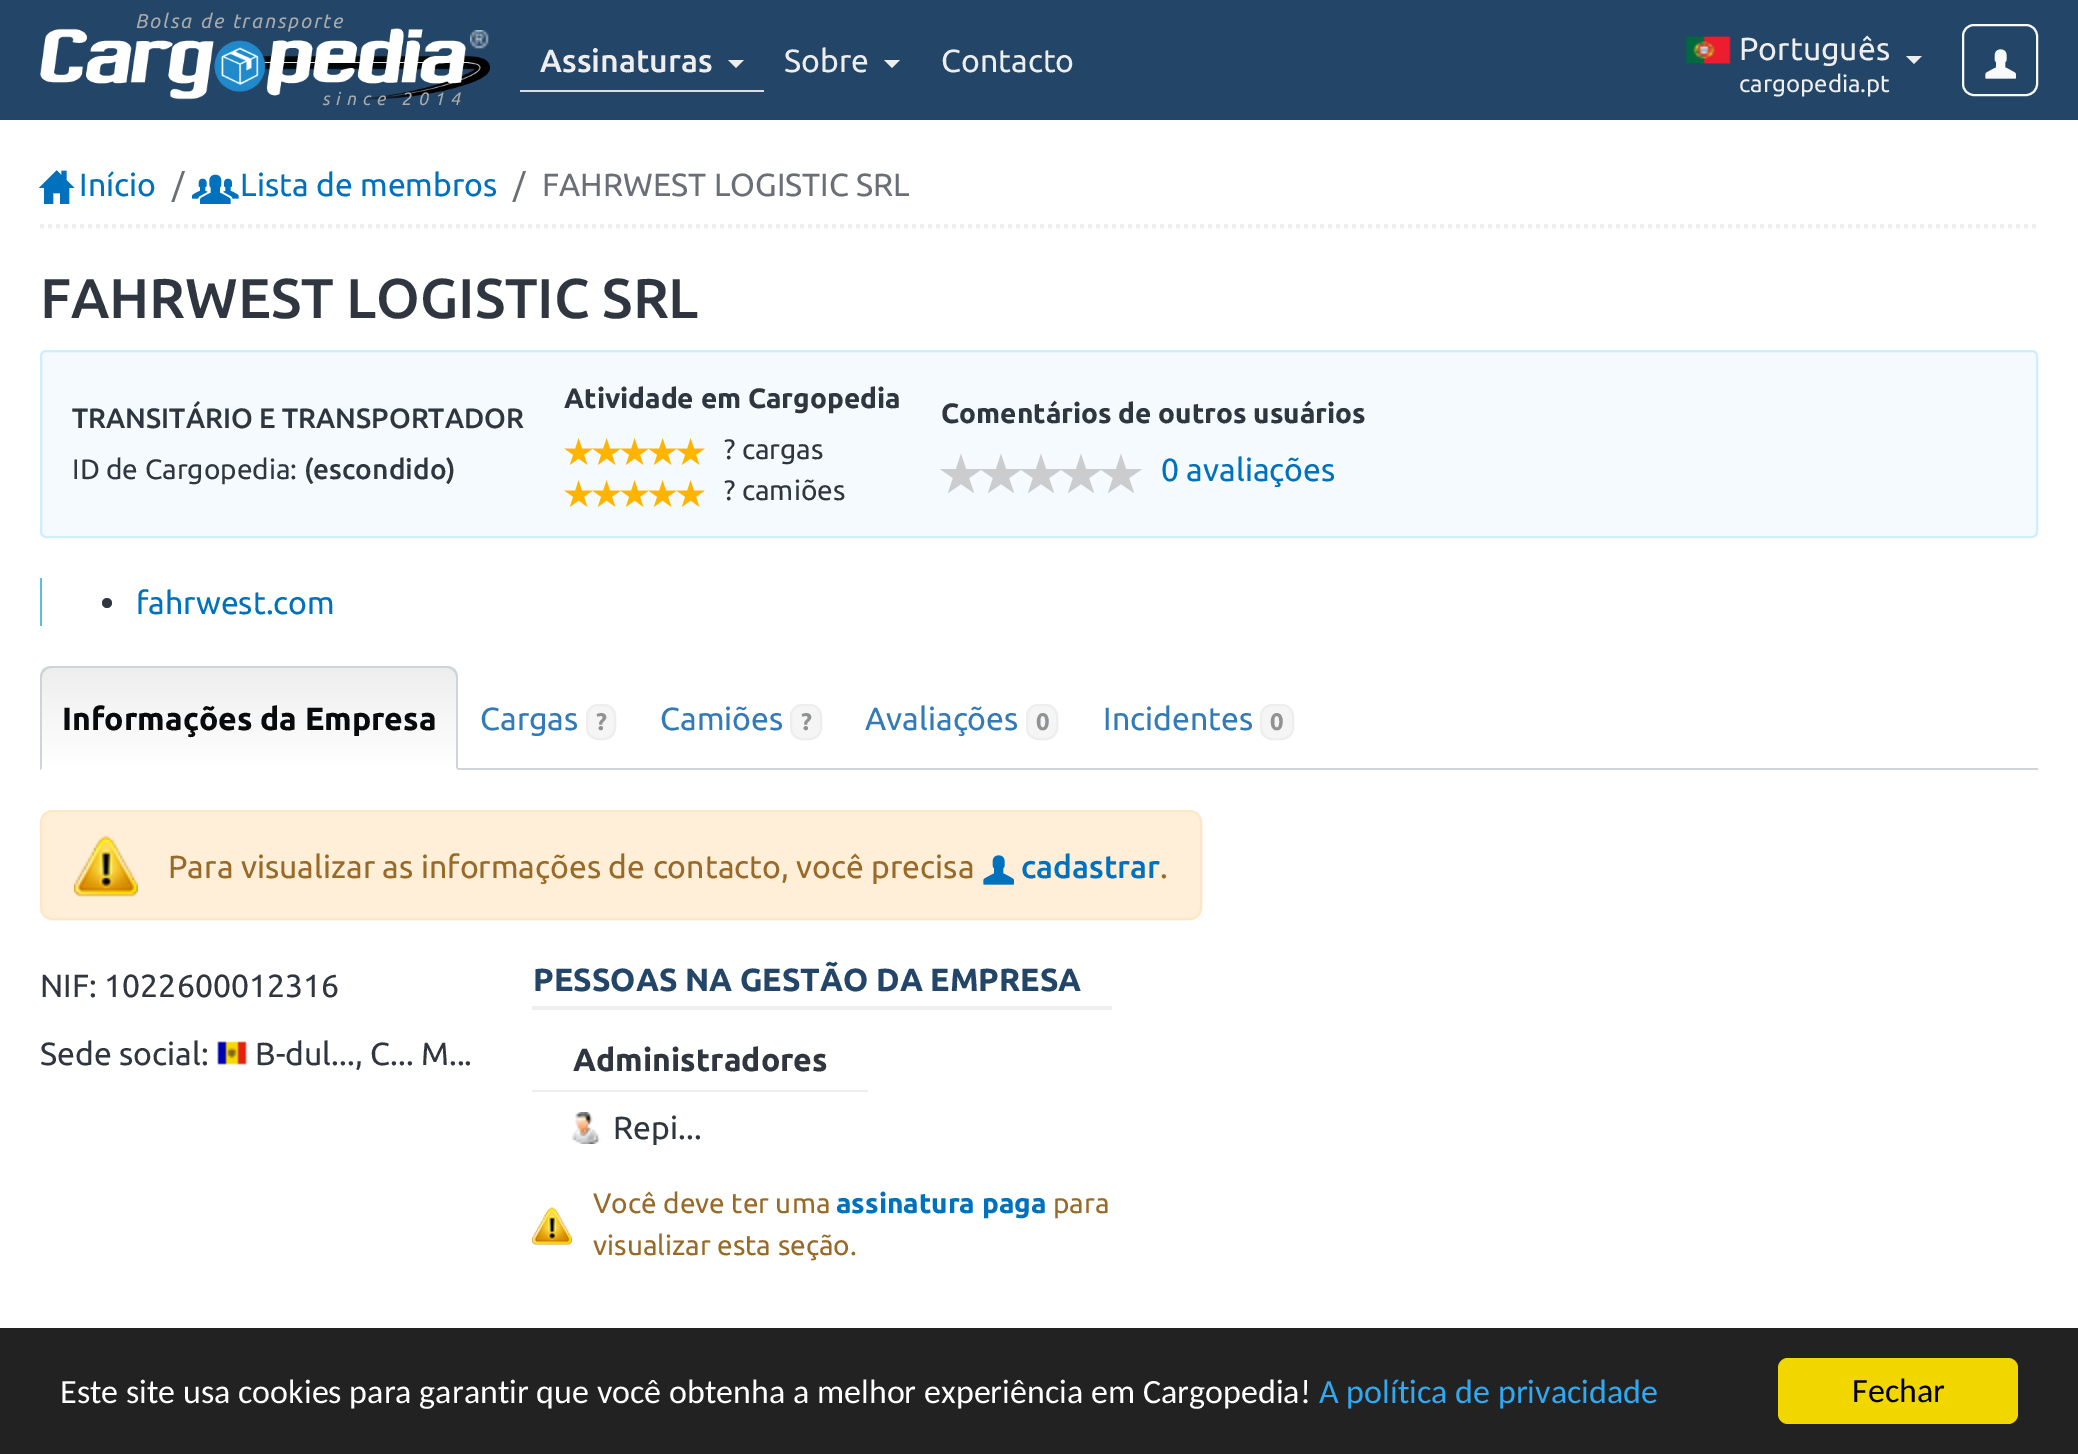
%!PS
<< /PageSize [2078 1454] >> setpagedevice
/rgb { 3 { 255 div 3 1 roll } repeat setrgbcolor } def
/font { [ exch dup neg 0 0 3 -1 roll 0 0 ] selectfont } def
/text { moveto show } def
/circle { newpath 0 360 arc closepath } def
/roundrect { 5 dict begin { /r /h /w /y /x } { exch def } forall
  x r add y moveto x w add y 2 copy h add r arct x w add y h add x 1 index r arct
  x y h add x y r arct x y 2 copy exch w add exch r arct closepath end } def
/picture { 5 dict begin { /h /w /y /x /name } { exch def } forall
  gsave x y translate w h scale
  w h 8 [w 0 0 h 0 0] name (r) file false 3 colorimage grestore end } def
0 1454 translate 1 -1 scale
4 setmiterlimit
255 255 255 rgb
0 0 2078 1454 rectfill
35 69 103 rgb
0 0 2078 120 rectfill
221 221 221 rgb
520 90 244 2 rectfill
238 238 238 rgb
728 60 moveto 16 0 rlineto -8 8 rlineto closepath fill
884 60 moveto 16 0 rlineto -8 8 rlineto closepath fill
(img_03.rgb) 1685 36 46 28 picture
1906 56 moveto 16 0 rlineto -8 8 rlineto closepath fill
248 249 250 rgb
2 setlinewidth
1963 25 74 70 11 roundrect stroke
(img_04.rgb) 1985 49 31 30 picture
238 238 238 rgb
4 setlinewidth
[4 4] 0 setdash
40 226 moveto 1998 0 rlineto stroke
(img_05.rgb) 38 170 37 34 picture
(img_06.rgb) 192 174 47 30 picture
244 250 253 rgb
41 351 1996 186 5 roundrect gsave fill grestore
207 238 253 rgb
2 setlinewidth
[] 0 setdash
stroke
(img_07.rgb) 564 438 29 27 picture
(img_08.rgb) 592 438 29 27 picture
(img_08.rgb) 620 438 29 27 picture
(img_08.rgb) 648 438 29 27 picture
(img_08.rgb) 676 438 29 27 picture
(img_07.rgb) 564 480 29 27 picture
(img_08.rgb) 592 480 29 27 picture
(img_08.rgb) 620 480 29 27 picture
(img_08.rgb) 648 480 29 27 picture
(img_08.rgb) 676 480 29 27 picture
202 204 205 rgb
969 478 moveto 5 15 rlineto -13 -9 rlineto -13 9 rlineto 5 -15 rlineto -13 -9 rlineto 16 0 rlineto 5 -15 rlineto 5 15 rlineto 16 0 rlineto closepath 948 493 moveto 0 0 rlineto closepath fill
1009 478 moveto 5 15 rlineto -13 -9 rlineto -13 9 rlineto 5 -15 rlineto -13 -9 rlineto 16 0 rlineto 5 -15 rlineto 5 15 rlineto 16 0 rlineto closepath 988 493 moveto 0 0 rlineto closepath fill
1049 478 moveto 5 15 rlineto -13 -9 rlineto -13 9 rlineto 5 -15 rlineto -13 -9 rlineto 16 0 rlineto 5 -15 rlineto 5 15 rlineto 16 0 rlineto closepath 1028 493 moveto 0 0 rlineto closepath fill
1089 478 moveto 5 15 rlineto -13 -9 rlineto -13 9 rlineto 5 -15 rlineto -13 -9 rlineto 16 0 rlineto 5 -15 rlineto 5 15 rlineto 16 0 rlineto closepath 1068 493 moveto 0 0 rlineto closepath fill
1129 478 moveto 5 15 rlineto -13 -9 rlineto -13 9 rlineto 5 -15 rlineto -13 -9 rlineto 16 0 rlineto 5 -15 rlineto 5 15 rlineto 16 0 rlineto closepath 1108 493 moveto 0 0 rlineto closepath fill
91 192 222 rgb
40 578 2 48 rectfill
48 54 64 rgb
107 603 5 circle fill
206 212 218 rgb
40 768 1998 2 rectfill
gsave
52 666 moveto 394 0 rlineto 6.5 0 12 5.5 12 12 rcurveto 0 92 rlineto -418 0 rlineto 0 -92 rlineto 0 -6.5 5.5 -12 12 -12 rcurveto closepath clip newpath
gsave 40 668 moveto 418 0 rlineto 0 100 rlineto -418 0 rlineto closepath clip newpath
<< /ShadingType 2 /ColorSpace /DeviceRGB /Coords [249 668 249 768] /Extend [true true] /Function << /FunctionType 2 /Domain [0 1] /C0 [0.933 0.933 0.933] /C1 [1 1 1] /N 1 >> >> shfill grestore
grestore
52 666 moveto -4 0 -6 1 -9 3 rcurveto 2 2 rlineto 1 -2 4 -3 7 -3 rcurveto 394 0 rlineto 3 0 6 1 7 3 rcurveto 2 -2 rlineto -3 -2 -5 -3 -9 -3 rcurveto closepath fill
458 770 moveto 0 -92 rlineto 0 -4 -1 -6 -3 -9 rcurveto -2 2 rlineto 2 1 3 4 3 7 rcurveto 0 90 rlineto closepath fill
255 255 255 rgb
458 770 moveto -2 -2 rlineto -414 0 rlineto -2 2 rlineto closepath fill
206 212 218 rgb
40 770 moveto 2 -2 rlineto 0 -90 rlineto 0 -3 1 -6 3 -7 rcurveto -2 -2 rlineto -2 3 -3 5 -3 9 rcurveto closepath fill
245 245 245 rgb
587 705 28 34 11 roundrect gsave fill grestore
238 238 238 rgb
stroke
245 245 245 rgb
791 705 30 34 11 roundrect gsave fill grestore
238 238 238 rgb
stroke
245 245 245 rgb
1027 705 30 34 11 roundrect gsave fill grestore
238 238 238 rgb
stroke
245 245 245 rgb
1261 705 32 34 11 roundrect gsave fill grestore
238 238 238 rgb
stroke
255 239 217 rgb
41 811 1160 108 11 roundrect gsave fill grestore
255 231 198 rgb
stroke
(img_09.rgb) 74 835 64 62 picture
(img_10.rgb) 983 855 31 30 picture
(img_11.rgb) 217 1041 30 24 picture
238 238 238 rgb
532 1006 580 4 rectfill
532 1090 336 2 rectfill
(img_12.rgb) 572 1112 29 32 picture
(img_13.rgb) 532 1207 40 38 picture
34 34 34 rgb
0 1328 2078 126 rectfill
241 214 0 rgb
1778 1358 240 66 10 roundrect fill
/Ubuntu-Italic 20 font
170 170 170 rgb
135 28 moveto 2 0 (Bolsa de transporte) ashow
(img_01.rgb) 40 28 450 72 picture
(img_02.rgb) 470 30 19 19 picture
/Ubuntu-Italic 18 font
322 105 moveto 6 0 (since 2014) ashow
/Ubuntu-Medium 32 font
238 238 238 rgb
(Assinaturas) 540 72 text
/Ubuntu-Regular 32 font
(Sobre) 784 72 text
(Contacto) 941 72 text
(Português) 1739 60 text
/Ubuntu-Regular 24 font
(cargopedia.pt) 1739 92 text
/Ubuntu-Regular 32 font
0 113 188 rgb
(Início) 79 196 text
106 110 118 rgb
(/) 172 196 text
0 113 188 rgb
(Lista de membros) 240 196 text
106 110 118 rgb
(/) 513 196 text
(FAHRWEST LOGISTIC SRL) 542 196 text
/Ubuntu-Medium 56 font
48 54 64 rgb
(FAHRWEST LOGISTIC SRL) 40 318 text
/Ubuntu-Medium 28 font
(TRANSITÁRIO E TRANSPORTADOR) 72 428 text
/Ubuntu-Regular 28 font
(ID de Cargopedia:) 72 479 text
/Ubuntu-Medium 28 font
(\(escondido\)) 304 479 text
/Ubuntu-Bold 28 font
(Atividade em Cargopedia) 564 408 text
/Ubuntu-Regular 28 font
(? cargas) 724 459 text
(? camiões) 724 500 text
/Ubuntu-Bold 28 font
(Comentários de outros usuários) 941 423 text
/Ubuntu-Regular 32 font
0 113 188 rgb
(0 avaliações) 1161 481 text
(fahrwest.com) 136 614 text
/Ubuntu-Bold 32 font
8 10 12 rgb
(Informações da Empresa) 62 730 text
/Ubuntu-Regular 32 font
51 122 183 rgb
(Cargas) 480 730 text
/Ubuntu-Bold 24 font
144 146 148 rgb
(?) 596 730 text
/Ubuntu-Regular 32 font
51 122 183 rgb
(Camiões) 660 730 text
/Ubuntu-Bold 24 font
144 146 148 rgb
(?) 801 730 text
/Ubuntu-Regular 32 font
51 122 183 rgb
(Avaliações) 865 730 text
/Ubuntu-Bold 24 font
144 146 148 rgb
(0) 1036 730 text
/Ubuntu-Regular 32 font
51 122 183 rgb
(Incidentes) 1103 730 text
/Ubuntu-Bold 24 font
144 146 148 rgb
(0) 1270 730 text
/Ubuntu-Regular 32 font
153 106 39 rgb
(Para visualizar as informações de contacto, você precisa) 168 878 text
/Ubuntu-Medium 32 font
0 113 188 rgb
(cadastrar) 1021 878 text
/Ubuntu-Regular 32 font
153 106 39 rgb
(.) 1160 878 text
48 54 64 rgb
(NIF: 1022600012316) 40 997 text
(Sede social:) 40 1065 text
(B-dul..., C... M...) 255 1065 text
/Ubuntu-Bold 32 font
35 69 103 rgb
(PESSOAS NA GESTÃO DA EMPRESA) 533 991 text
48 54 64 rgb
(Administradores) 573 1071 text
/Ubuntu-Regular 32 font
(Repi...) 613 1139 text
/Ubuntu-Regular 28 font
153 106 39 rgb
(Você deve ter uma) 593 1213 text
/Ubuntu-Bold 28 font
0 113 188 rgb
(assinatura paga) 836 1213 text
/Ubuntu-Regular 28 font
153 106 39 rgb
(para) 1053 1213 text
(visualizar esta seção.) 593 1255 text
/Carlito-Regular 34 font
255 255 255 rgb
(Este site usa cookies para garantir que você obtenha a melhor experiência em Cargopedia!) 60 1403 text
49 168 240 rgb
(A política de privacidade) 1319 1403 text
0 0 0 rgb
(Fechar) 1852 1402 text
showpage
